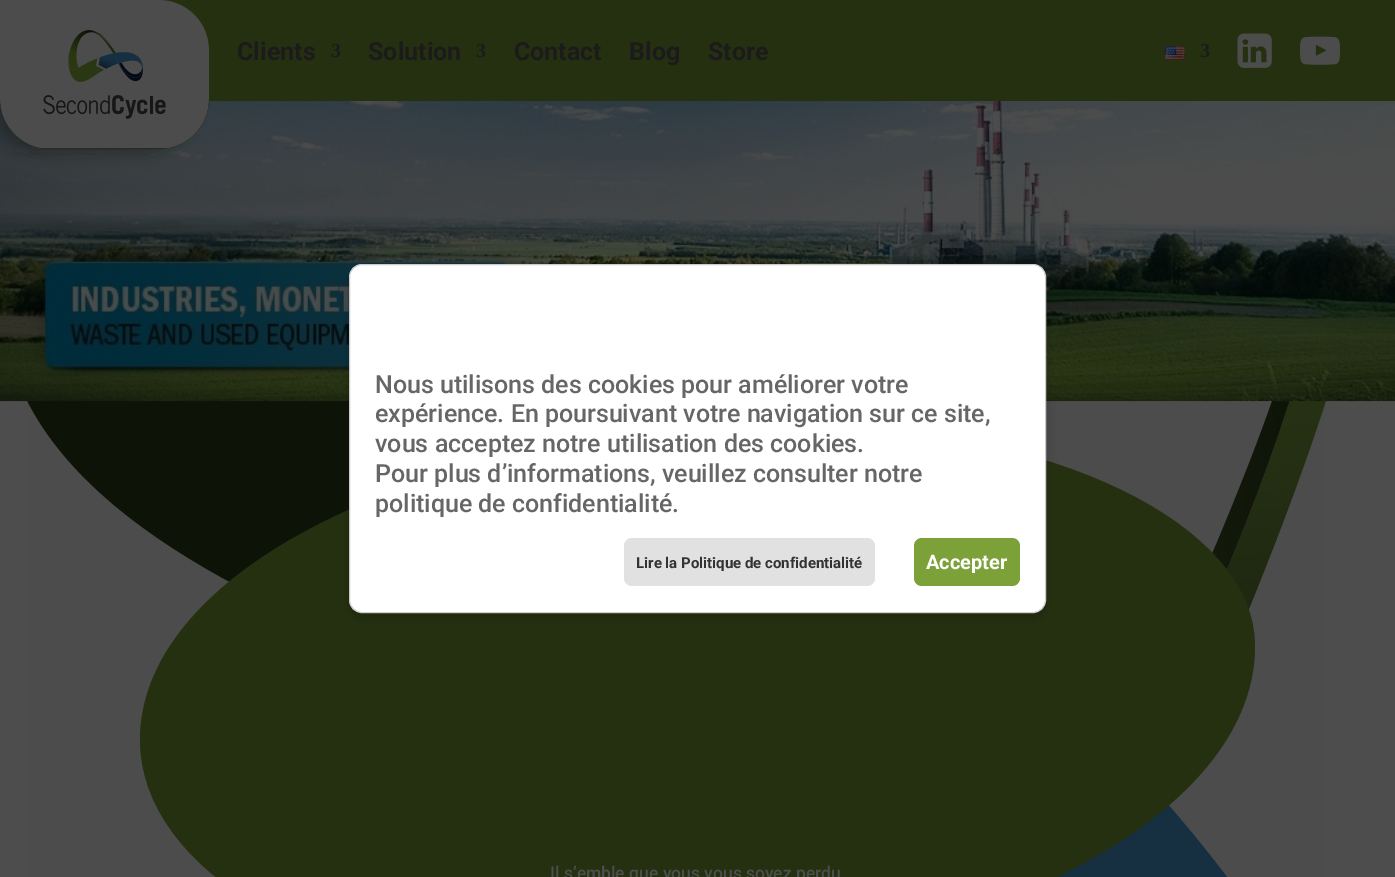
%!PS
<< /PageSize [1395 877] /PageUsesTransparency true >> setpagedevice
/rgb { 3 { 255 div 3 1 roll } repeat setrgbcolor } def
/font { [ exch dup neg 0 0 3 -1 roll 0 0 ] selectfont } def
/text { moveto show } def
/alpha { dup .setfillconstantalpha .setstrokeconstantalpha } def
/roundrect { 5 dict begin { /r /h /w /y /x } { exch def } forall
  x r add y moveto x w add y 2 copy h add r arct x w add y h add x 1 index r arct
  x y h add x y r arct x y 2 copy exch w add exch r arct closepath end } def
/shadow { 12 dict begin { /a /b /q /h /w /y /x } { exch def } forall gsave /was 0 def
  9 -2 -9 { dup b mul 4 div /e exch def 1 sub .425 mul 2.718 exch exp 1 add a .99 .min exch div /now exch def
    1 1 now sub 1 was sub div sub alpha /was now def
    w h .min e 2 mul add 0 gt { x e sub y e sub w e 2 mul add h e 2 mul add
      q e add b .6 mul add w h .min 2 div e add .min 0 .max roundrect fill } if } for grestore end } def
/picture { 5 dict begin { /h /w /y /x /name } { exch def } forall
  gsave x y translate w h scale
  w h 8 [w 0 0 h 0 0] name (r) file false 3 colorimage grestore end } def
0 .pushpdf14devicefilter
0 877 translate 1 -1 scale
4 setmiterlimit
77 77 77 rgb
0 0 1395 877 rectfill
(img_06.rgb) 27 401 1299 476 picture
(img_05.rgb) 0 99 1395 303 picture
0 0 0 rgb
-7 14 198 139 45 9 0.3 shadow
37 48 17 rgb
0 0 moveto 209 0 rlineto 0 99 rlineto 0 27.5 -22.5 50 -50 50 rcurveto -109 0 rlineto -27.5 0 -50 -22.5 -50 -50 rcurveto closepath fill
(img_01.rgb) 0 0 209 148 picture
209 0 1186 101 rectfill
(img_02.rgb) 1165 46 20 14 picture
(img_03.rgb) 1237 33 35 35 picture
(img_04.rgb) 1300 36 40 29 picture
798 425 moveto 252 0 457 99 457 221 rcurveto 0 183 -314 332 -702 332 rcurveto -228 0 -413 -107 -413 -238 rcurveto 0 -174 295 -315 658 -315 rcurveto closepath fill
0 0 0 rgb
349 269 697 349 13 5 0.2 shadow
255 255 255 rgb
349.5 264.5 696 348 12.5 roundrect gsave fill grestore
204 204 204 rgb
stroke
225 225 225 rgb
624 538 251 48 8 roundrect fill
123 161 56 rgb
914 538 106 48 8 roundrect fill
/Roboto-Bold 25 font
27 27 27 rgb
(Clients) 237 60 text
/LiberationSerif-Bold 20 font
(3) 331 57 text
/Roboto-Bold 25 font
(Solution) 368 60 text
/LiberationSerif-Bold 20 font
(3) 476 57 text
/Roboto-Bold 25 font
(Contact) 514 60 text
(Blog) 629 60 text
(Store) 708 60 text
/LiberationSerif-Bold 20 font
(3) 1200 57 text
/Roboto-Medium 17.5 font
77 77 77 rgb
(Il s’emble que vous vous soyez perdu) 550 879 text
/Roboto-Medium 25 font
102 102 102 rgb
(Nous utilisons des cookies pour améliorer votre) 375 393 text
(expérience. En poursuivant votre navigation sur ce site,) 375 422 text
(vous acceptez notre utilisation des cookies.) 375 452 text
(Pour plus d’informations, veuillez consulter notre) 375 482 text
(politique de confidentialité.) 375 512 text
/Roboto-Bold 15 font
51 51 51 rgb
(Lire la Politique de confidentialité) 636 568 text
/Roboto-Bold 20 font
255 255 255 rgb
(Accepter) 926 569 text
.poppdf14devicefilter showpage
